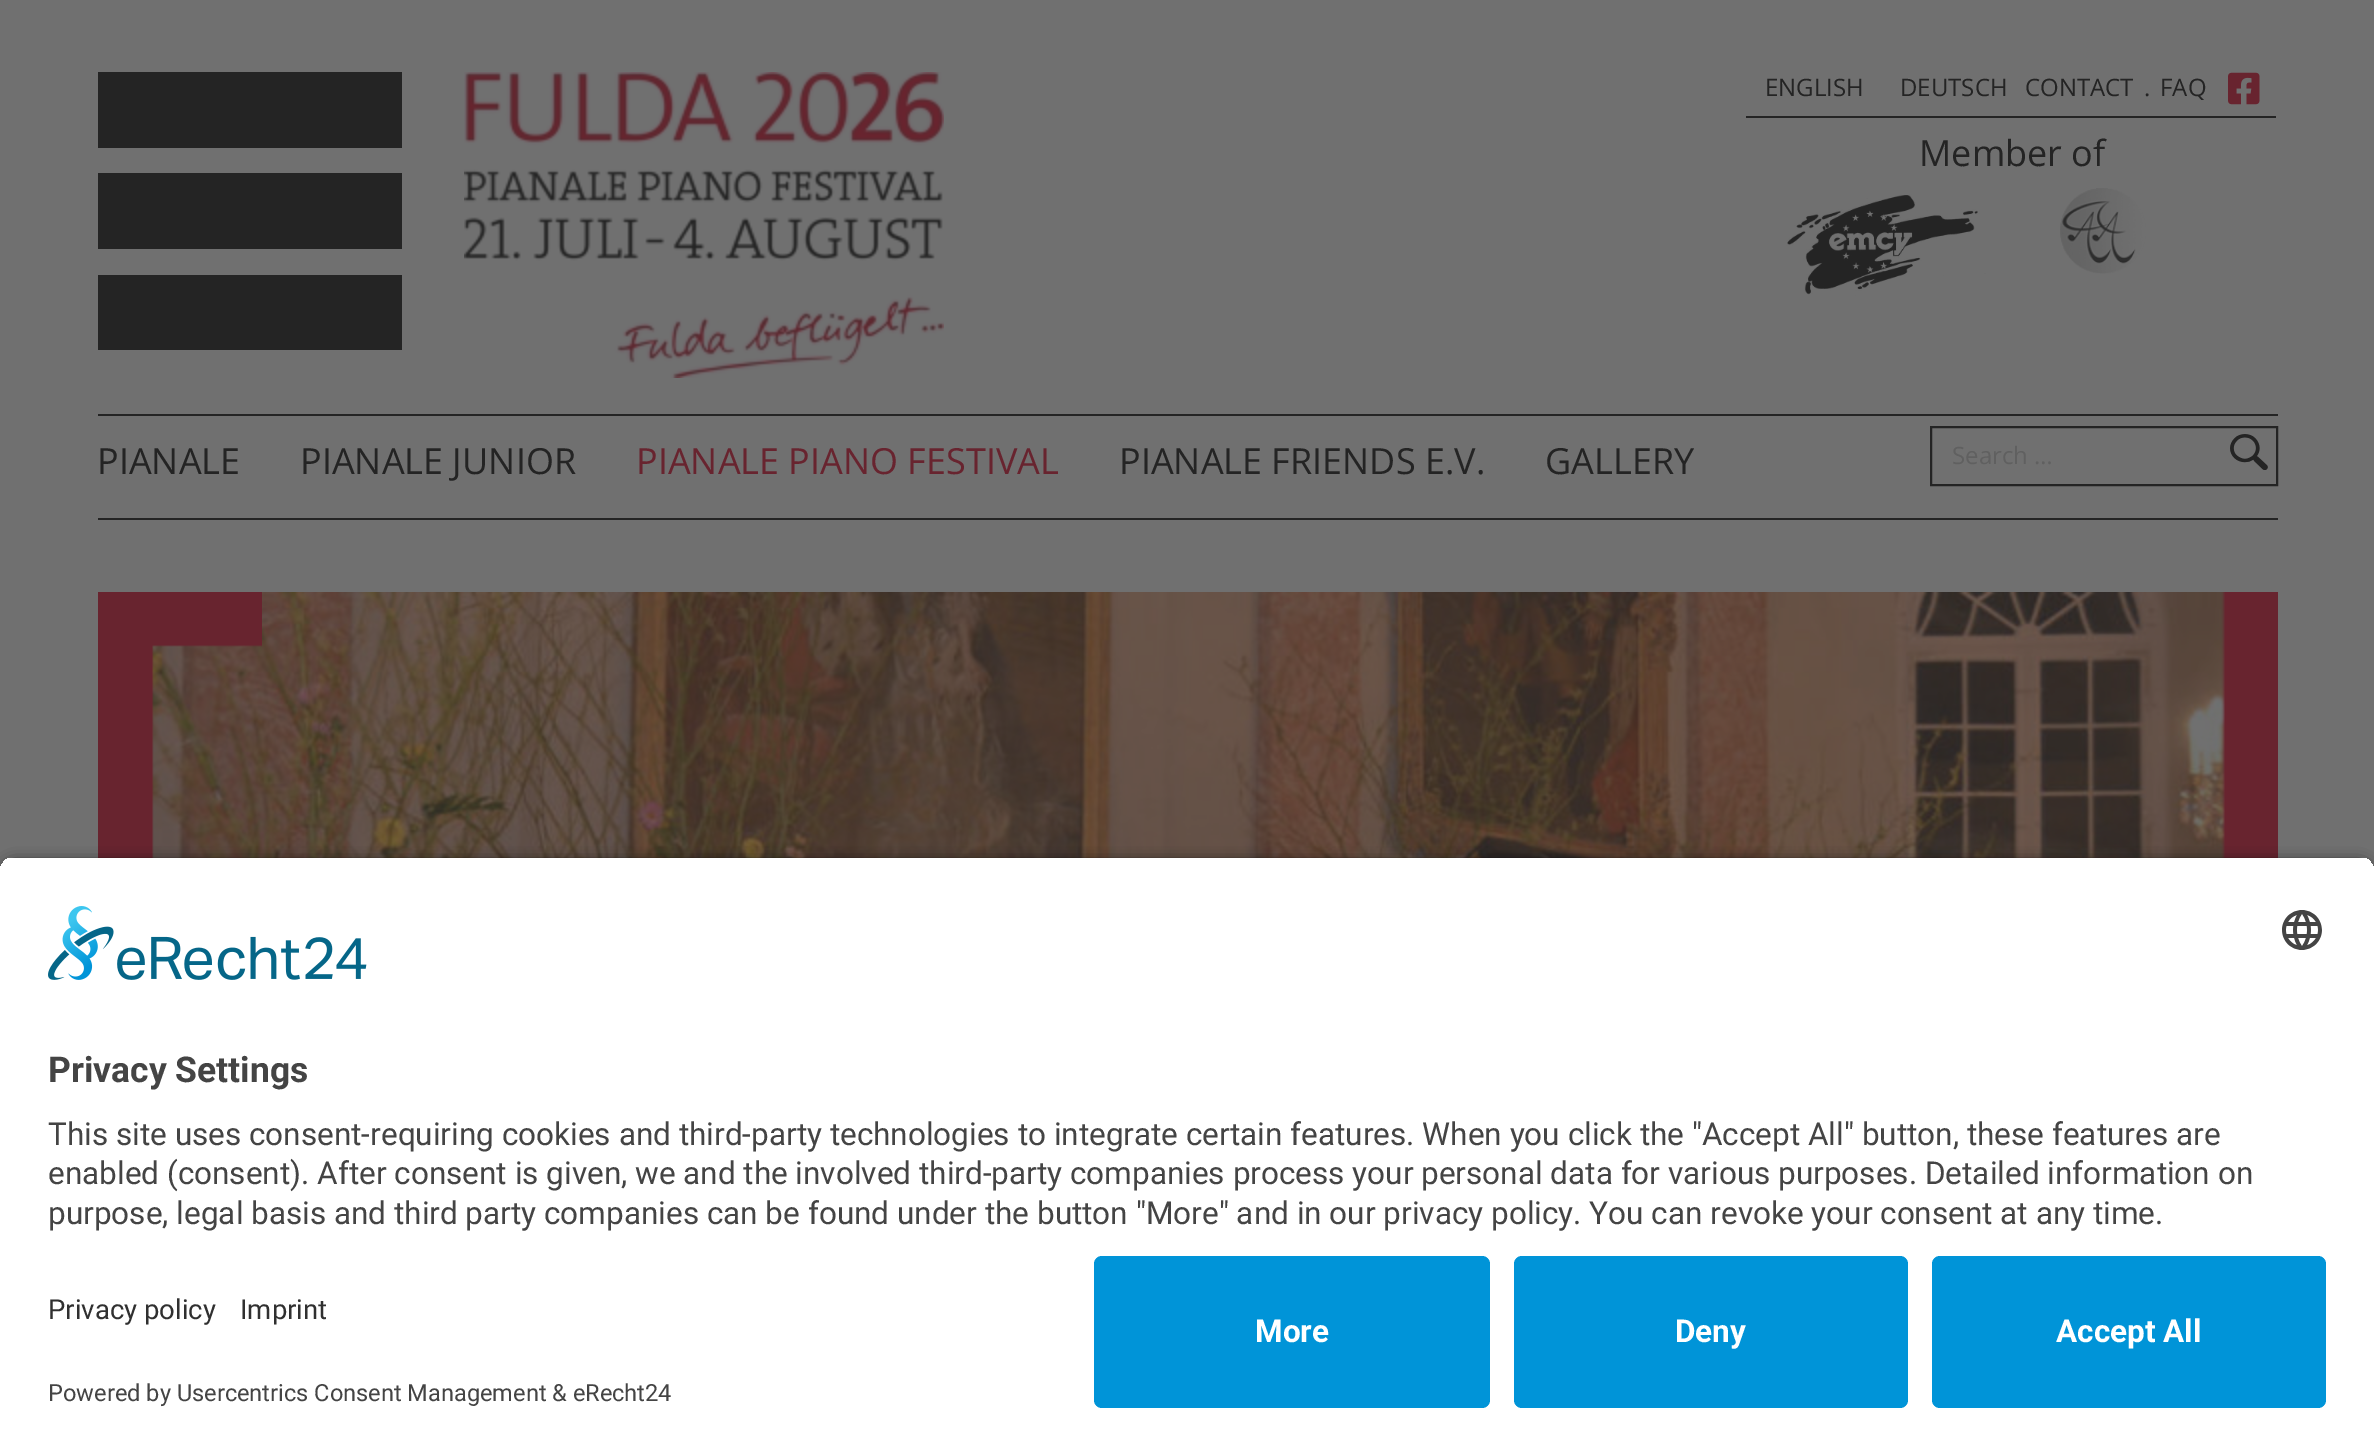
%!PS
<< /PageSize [2374 1455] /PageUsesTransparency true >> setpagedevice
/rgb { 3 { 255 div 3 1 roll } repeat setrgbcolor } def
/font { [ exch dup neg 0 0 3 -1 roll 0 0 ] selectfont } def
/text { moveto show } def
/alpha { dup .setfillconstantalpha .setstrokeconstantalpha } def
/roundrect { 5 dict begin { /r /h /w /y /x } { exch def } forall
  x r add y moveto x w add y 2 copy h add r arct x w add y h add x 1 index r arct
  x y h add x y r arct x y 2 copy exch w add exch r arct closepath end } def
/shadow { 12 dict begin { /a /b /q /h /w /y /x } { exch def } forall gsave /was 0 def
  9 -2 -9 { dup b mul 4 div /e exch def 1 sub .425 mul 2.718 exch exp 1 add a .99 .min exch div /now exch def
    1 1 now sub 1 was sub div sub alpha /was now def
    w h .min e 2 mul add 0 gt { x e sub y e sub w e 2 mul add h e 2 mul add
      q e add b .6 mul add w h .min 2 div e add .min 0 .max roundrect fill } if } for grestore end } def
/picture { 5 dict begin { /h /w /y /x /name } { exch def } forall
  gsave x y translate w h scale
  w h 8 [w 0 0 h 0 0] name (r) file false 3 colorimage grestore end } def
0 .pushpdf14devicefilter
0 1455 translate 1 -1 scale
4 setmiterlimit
112 112 112 rgb
0 0 2374 1455 rectfill
gsave
98 72 304 278 rectclip
36 36 36 rgb
98 72 moveto 304 0 rlineto 0 76 rlineto -304 0 rlineto closepath 98 173 moveto 304 0 rlineto 0 76 rlineto -304 0 rlineto closepath 98 275 moveto 304 0 rlineto 0 76 rlineto -304 0 rlineto closepath fill
grestore
(img_01.rgb) 464 72 480 306 picture
36 36 36 rgb
1746 116 530 2 rectfill
(img_02.rgb) 2228 72 32 33 picture
(img_03.rgb) 1786 194 200 102 picture
(img_04.rgb) 2060 188 86 86 picture
98 414 2180 2 rectfill
98 518 2180 2 rectfill
2 setlinewidth
1931 427 346 58 rectstroke
(img_05.rgb) 2230 434 38 36 picture
(img_07.rgb) 152 592 2073 266 picture
(img_06.rgb) 98 592 164 266 picture
(img_08.rgb) 2221 592 57 266 picture
0 0 0 rgb
0 862 2374 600 16 7 0.8 shadow
gsave
16 856 moveto 2342 0 rlineto 9 0 16 7 16 16 rcurveto 0 368 rlineto -2374 0 rlineto 0 -368 rlineto 0 -9 7 -16 16 -16 rcurveto closepath clip newpath
255 255 255 rgb
0 858 2374 382 rectfill
grestore
(img_09.rgb) 48 906 319 74 picture
(img_10.rgb) 2282 910 40 40 picture
255 255 255 rgb
0 1240 2374 215 rectfill
0 148 216 rgb
1094 1256 396 152 8 roundrect fill
1514 1256 394 152 8 roundrect fill
1932 1256 394 152 8 roundrect fill
/OpenSans-Regular 24 font
36 36 36 rgb
(ENGLISH) 1765 96 text
(DEUTSCH) 1900 96 text
(CONTACT) 2025 96 text
(.) 2144 96 text
(FAQ) 2160 96 text
/OpenSans-Regular 36 font
(Member of) 1919 166 text
(PIANALE) 97 474 text
(PIANALE JUNIOR) 300 474 text
104 36 47 rgb
(PIANALE PIANO FESTIVAL) 636 474 text
36 36 36 rgb
(PIANALE FRIENDS E.V.) 1119 474 text
(GALLERY) 1545 474 text
/OpenSans-Regular 24 font
96 96 96 rgb
(Search …) 1952 464 text
/Roboto-Bold 35.5 font
68 68 68 rgb
(Privacy Settings) 48 1082 text
/Roboto-Regular 31.5 font
(This site uses consent-requiring cookies and third-party technologies to integrate certain features. When you click the "Accept All" button, these features are) 48 1145 text
(enabled \(consent\). After consent is given, we and the involved third-party companies process your personal data for various purposes. Detailed information on) 48 1184 text
(purpose, legal basis and third party companies can be found under the button "More" and in our privacy policy. You can revoke your consent at any time.) 48 1224 text
/Roboto-Regular 27.5 font
48 48 48 rgb
(Privacy policy) 48 1319 text
(Imprint) 240 1319 text
/Roboto-Regular 23.6 font
68 68 68 rgb
(Powered by Usercentrics Consent Management) 48 1401 text
(& eRecht24) 552 1401 text
/Roboto-Bold 31.5 font
255 255 255 rgb
(More) 1255 1342 text
(Deny) 1675 1342 text
(Accept All) 2056 1342 text
.poppdf14devicefilter showpage
